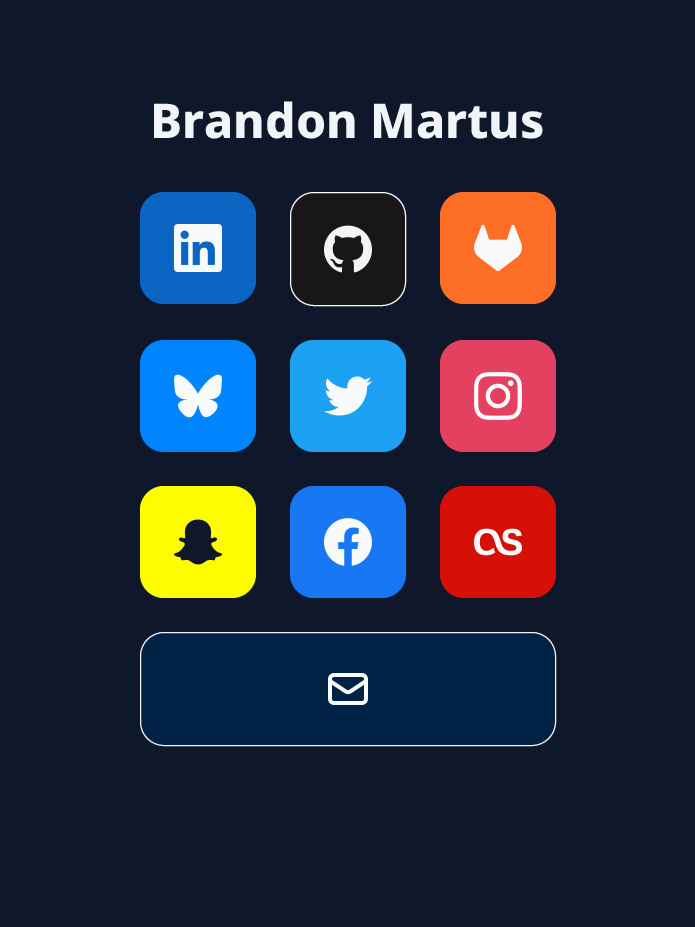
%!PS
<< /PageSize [695 927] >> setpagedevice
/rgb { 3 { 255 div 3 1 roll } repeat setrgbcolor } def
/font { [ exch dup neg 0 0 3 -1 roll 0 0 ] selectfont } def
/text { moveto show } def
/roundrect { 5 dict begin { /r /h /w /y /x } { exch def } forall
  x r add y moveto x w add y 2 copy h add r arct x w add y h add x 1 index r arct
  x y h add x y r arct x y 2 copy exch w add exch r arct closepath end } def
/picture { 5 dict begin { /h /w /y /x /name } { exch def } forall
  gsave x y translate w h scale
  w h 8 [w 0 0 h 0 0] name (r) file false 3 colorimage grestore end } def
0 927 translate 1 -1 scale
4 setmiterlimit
15 23 42 rgb
0 0 695 927 rectfill
10 102 194 rgb
140 192 116 112 24 roundrect fill
(img_01.rgb) 174 224 48 48 picture
24 23 23 rgb
290.5 192.5 115 113 23.5 roundrect gsave fill grestore
248 250 252 rgb
stroke
(img_02.rgb) 324 225 48 48 picture
252 109 38 rgb
440 192 116 112 24 roundrect fill
(img_03.rgb) 474 224 48 48 picture
0 133 255 rgb
140 340 116 112 24 roundrect fill
(img_04.rgb) 174 374 48 44 picture
29 161 242 rgb
290 340 116 112 24 roundrect fill
(img_05.rgb) 324 376 48 40 picture
228 64 95 rgb
440 340 116 112 24 roundrect fill
(img_06.rgb) 474 372 48 48 picture
255 252 0 rgb
140 486 116 112 24 roundrect fill
(img_07.rgb) 174 519 48 46 picture
24 119 242 rgb
290 486 116 112 24 roundrect fill
(img_08.rgb) 324 518 48 48 picture
213 16 7 rgb
440 486 116 112 24 roundrect fill
(img_09.rgb) 474 528 48 28 picture
0 34 68 rgb
140.5 632.5 415 113 23.5 roundrect gsave fill grestore
241 245 249 rgb
stroke
(img_10.rgb) 328 673 40 32 picture
/NotoSans-ExtraBold 48 font
(Brandon Martus) 150 138 text
showpage
